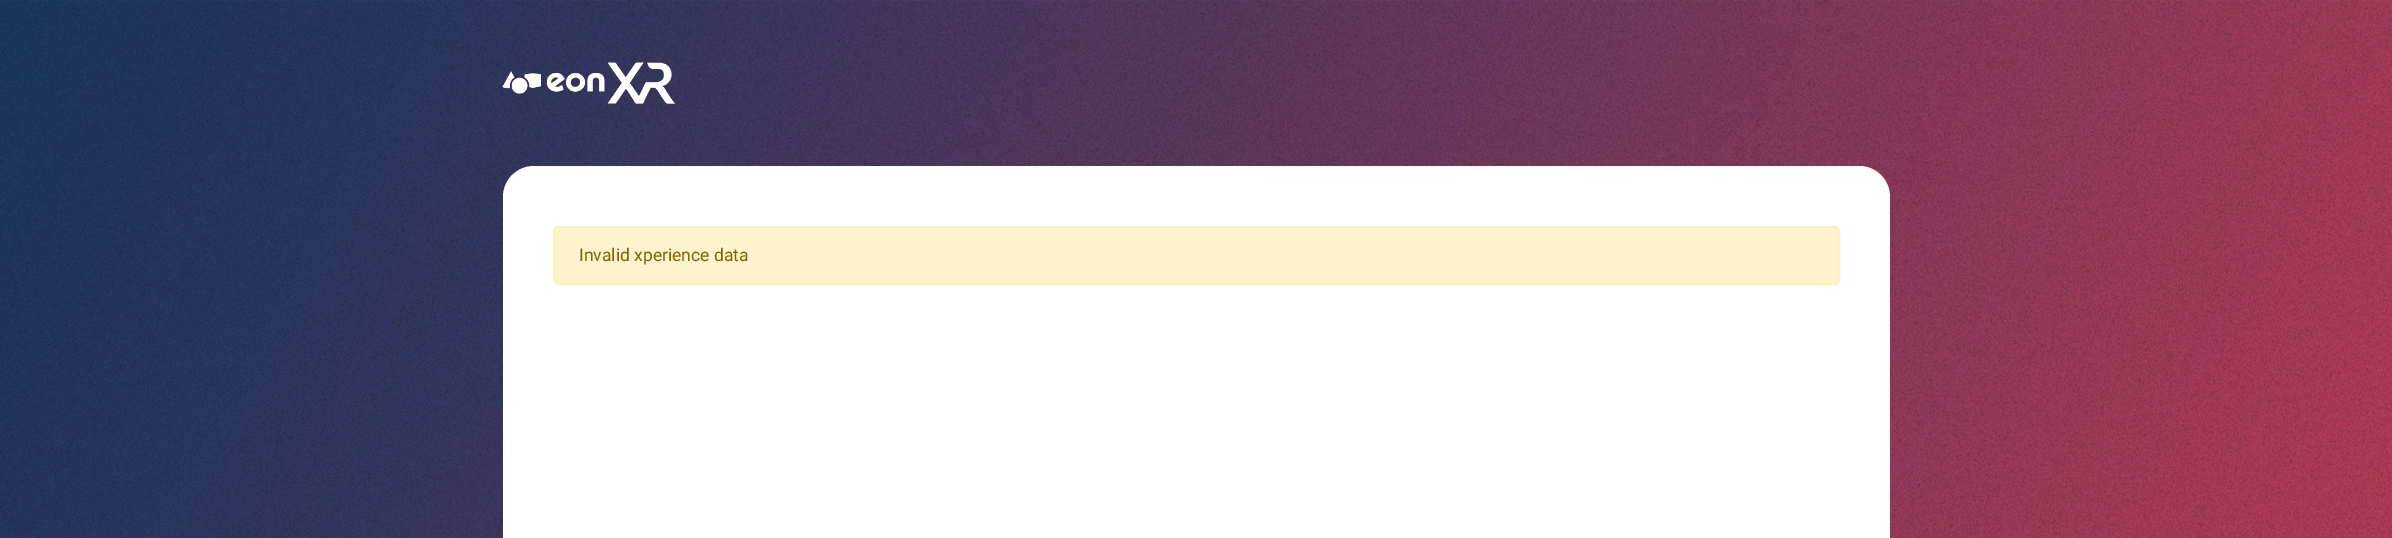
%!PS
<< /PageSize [2392 538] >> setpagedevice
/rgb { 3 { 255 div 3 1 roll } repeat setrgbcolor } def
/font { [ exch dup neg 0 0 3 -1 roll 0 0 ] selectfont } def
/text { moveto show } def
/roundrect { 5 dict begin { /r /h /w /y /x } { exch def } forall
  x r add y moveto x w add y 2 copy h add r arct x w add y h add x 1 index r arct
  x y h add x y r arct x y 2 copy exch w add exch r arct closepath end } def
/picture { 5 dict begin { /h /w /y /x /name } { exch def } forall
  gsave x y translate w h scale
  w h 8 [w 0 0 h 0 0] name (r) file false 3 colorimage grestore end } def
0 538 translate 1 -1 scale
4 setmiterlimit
255 255 255 rgb
0 0 2392 538 rectfill
(img_01.rgb) 0 0 2392 538 picture
(img_02.rgb) 502 62 173 42 picture
503 166 1387 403 31 roundrect fill
255 243 205 rgb
553.5 226.5 1286 58 4.5 roundrect gsave fill grestore
255 238 186 rgb
stroke
/Roboto-Regular 17.5 font
133 100 4 rgb
(Invalid xperience data) 579 261 text
showpage
